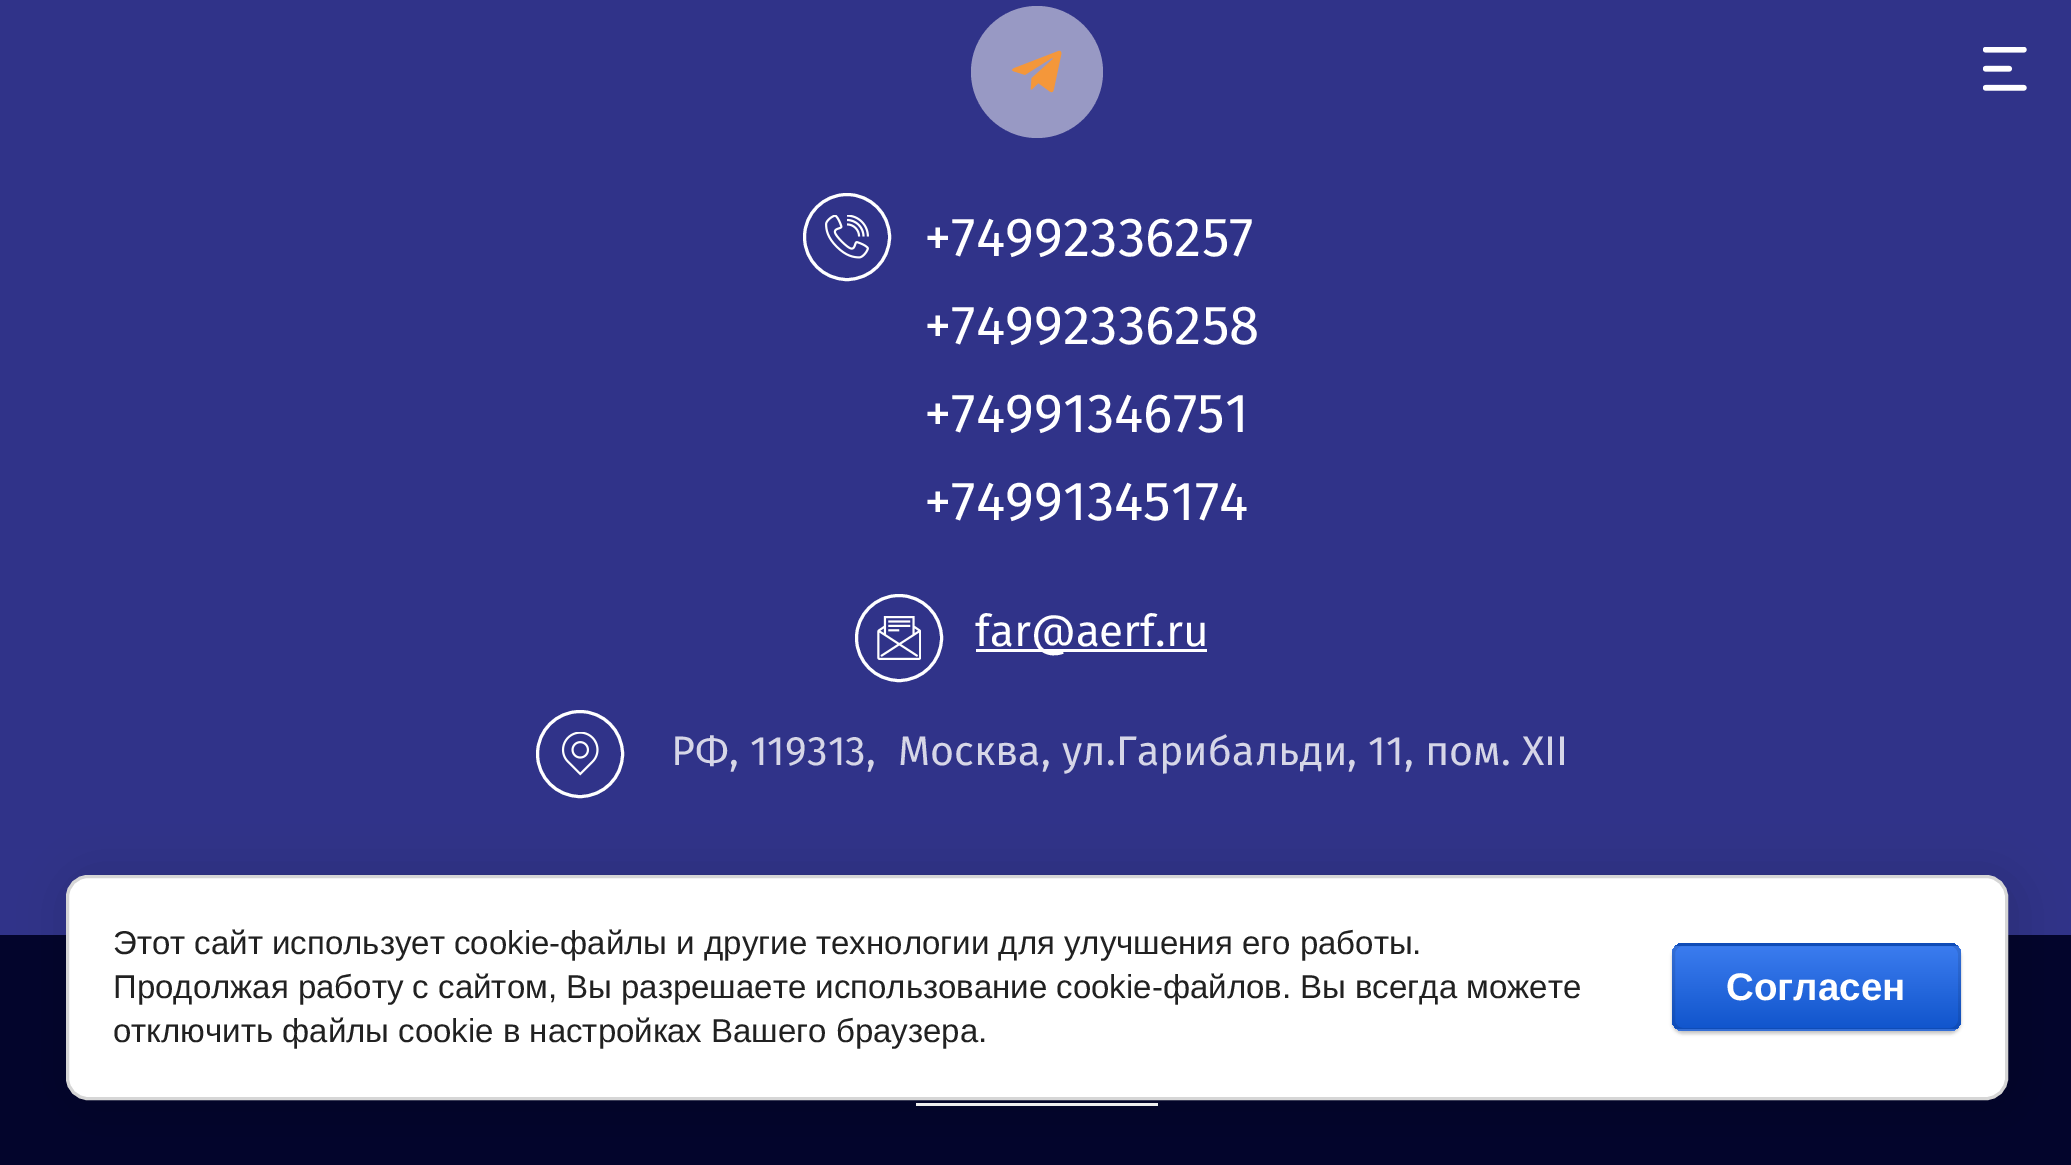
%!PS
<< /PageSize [2071 1165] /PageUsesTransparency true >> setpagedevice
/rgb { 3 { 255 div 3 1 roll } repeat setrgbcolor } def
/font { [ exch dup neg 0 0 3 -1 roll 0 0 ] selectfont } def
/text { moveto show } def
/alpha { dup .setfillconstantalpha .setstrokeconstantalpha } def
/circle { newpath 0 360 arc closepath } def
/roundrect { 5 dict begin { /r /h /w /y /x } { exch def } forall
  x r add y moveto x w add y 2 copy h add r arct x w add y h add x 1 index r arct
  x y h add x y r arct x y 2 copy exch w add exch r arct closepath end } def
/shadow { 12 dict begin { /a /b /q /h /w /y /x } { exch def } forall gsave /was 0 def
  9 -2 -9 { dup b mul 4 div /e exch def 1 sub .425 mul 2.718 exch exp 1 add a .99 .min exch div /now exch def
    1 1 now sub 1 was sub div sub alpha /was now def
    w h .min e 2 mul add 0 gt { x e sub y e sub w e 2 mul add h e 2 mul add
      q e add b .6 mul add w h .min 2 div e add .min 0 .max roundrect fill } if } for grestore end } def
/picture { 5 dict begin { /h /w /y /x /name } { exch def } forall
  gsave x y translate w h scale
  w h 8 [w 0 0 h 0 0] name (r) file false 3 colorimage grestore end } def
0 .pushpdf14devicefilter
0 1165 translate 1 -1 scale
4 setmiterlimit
48 51 137 rgb
0 0 2071 1165 rectfill
(img_01.rgb) 1983 47 44 44 picture
152 153 196 rgb
1037 72 66 circle fill
(img_02.rgb) 1012 50 50 43 picture
255 255 255 rgb
3 setlinewidth
847 237 42.5 circle stroke
(img_03.rgb) 825 215 44 44 picture
899 638 42.5 circle stroke
(img_04.rgb) 877 616 44 44 picture
976 649 231 3 rectfill
580 754 42.5 circle stroke
(img_05.rgb) 561 732 38 44 picture
3 5 44 rgb
0 935 2071 230 rectfill
255 255 255 rgb
916 1103 242 3 rectfill
0 0 0 rgb
72 880 1941 226 22 25 0.14 shadow
255 255 255 rgb
67.5 876.5 1939 222 20.5 roundrect gsave fill grestore
214 214 214 rgb
stroke
0 0 0 rgb
1672 946 289 88 11 1.5 0.2 shadow
gsave
1672 943 289 88 11 roundrect clip newpath
gsave 1672 943 moveto 289 0 rlineto 0 3 rlineto -289 0 rlineto closepath clip newpath
<< /ShadingType 2 /ColorSpace /DeviceRGB /Coords [1816 864 1816 946] /Extend [true true] /Function << /FunctionType 2 /Domain [0 1] /C0 [0.231 0.486 0.937] /C1 [0.067 0.333 0.8] /N 1 >> >> shfill grestore
gsave 1672 946 moveto 289 0 rlineto 0 83 rlineto -289 0 rlineto closepath clip newpath
<< /ShadingType 2 /ColorSpace /DeviceRGB /Coords [1816 946 1816 1029] /Extend [true true] /Function << /FunctionType 2 /Domain [0 1] /C0 [0.231 0.486 0.937] /C1 [0.067 0.333 0.8] /N 1 >> >> shfill grestore
gsave 1672 1029 moveto 289 0 rlineto 0 2 rlineto -289 0 rlineto closepath clip newpath
<< /ShadingType 2 /ColorSpace /DeviceRGB /Coords [1816 1029 1816 1111] /Extend [true true] /Function << /FunctionType 2 /Domain [0 1] /C0 [0.231 0.486 0.937] /C1 [0.067 0.333 0.8] /N 1 >> >> shfill grestore
grestore
0.1 alpha
1673.5 944.5 286 85 9.5 roundrect stroke
/FiraSans-Regular 55 font
1 alpha
255 255 255 rgb
(+74992336257) 924 256 text
(+74992336258) 924 344 text
(+74991346751) 924 432 text
(+74991345174) 924 520 text
/FiraSans-Regular 44 font
(far@aerf.ru) 975 646 text
/FiraSans-Regular 41.25 font
214 214 231 rgb
(РФ, 119313,  Москва, ул.Гарибальди, 11, пом. XII) 671 765 text
/LiberationSans-Regular 33 font
33 33 33 rgb
(Этот сайт использует cookie-файлы и другие технологии для улучшения его работы.) 113 954 text
(Продолжая работу с сайтом, Вы разрешаете использование cookie-файлов. Вы всегда можете) 113 998 text
(отключить файлы cookie в настройках Вашего браузера.) 113 1042 text
/LiberationSans-Bold 38.5 font
255 255 255 rgb
(Согласен) 1726 1000 text
.poppdf14devicefilter showpage
